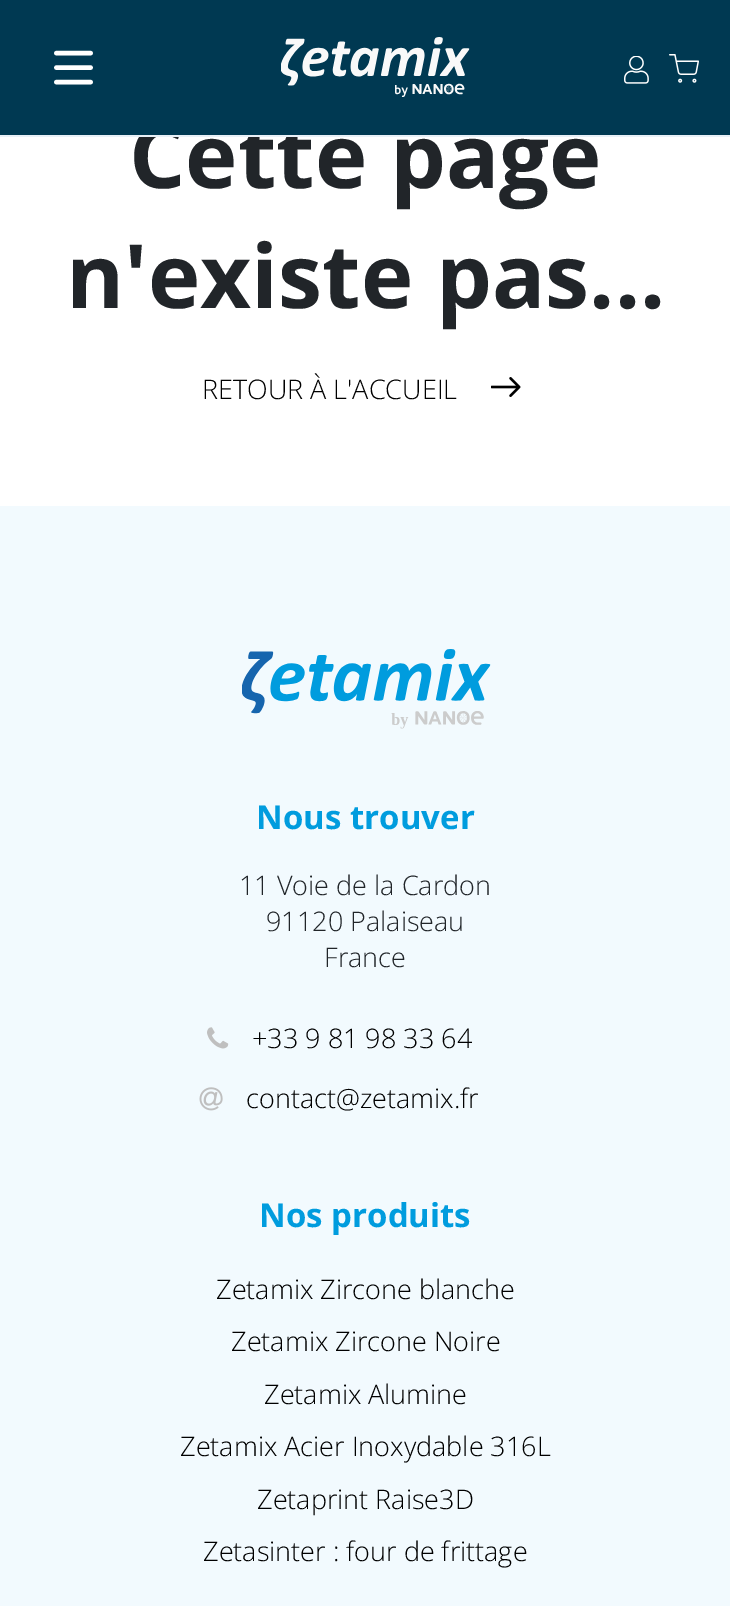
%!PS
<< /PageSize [730 1606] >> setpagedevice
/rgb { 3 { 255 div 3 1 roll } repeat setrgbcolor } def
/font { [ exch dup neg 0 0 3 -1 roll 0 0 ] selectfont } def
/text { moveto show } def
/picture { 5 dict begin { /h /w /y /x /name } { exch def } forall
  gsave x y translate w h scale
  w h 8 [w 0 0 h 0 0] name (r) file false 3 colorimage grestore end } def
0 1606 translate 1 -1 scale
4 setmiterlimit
255 255 255 rgb
0 0 730 1606 rectfill
(img_04.rgb) 491 377 30 20 picture
242 250 254 rgb
0 506 730 1100 rectfill
(img_05.rgb) 242 649 249 80 picture
(img_06.rgb) 207 1027 22 22 picture
(img_07.rgb) 199 1087 24 24 picture
/OpenSans-Bold 88.5 font
33 37 41 rgb
(Cette page) 129 188 text
0 57 82 rgb
0 0 730 135 rectfill
(img_03.rgb) 669 54 30 29 picture
(img_02.rgb) 624 56 25 28 picture
255 255 255 rgb
4.6 setlinewidth
1 setlinecap
56.5 53 moveto 34 0 rlineto 56.5 67.5 moveto 34 0 rlineto 90.5 82 moveto -34 0 rlineto stroke
(img_01.rgb) 281 37 189 60 picture
232 240 247 rgb
0 135 730 2 rectfill
33 37 41 rgb
(n'existe pas...) 66 308 text
/OpenSans-Light 27 font
0 0 0 rgb
(RETOUR À L'ACCUEIL) 202 399 text
/OpenSans-Bold 33 font
0 156 222 rgb
(Nous trouver) 256 829 text
/OpenSans-Light 27 font
33 37 41 rgb
(11 Voie de la Cardon) 239 895 text
(91120 Palaiseau) 266 931 text
(France) 324 967 text
0 0 0 rgb
(+33 9 81 98 33 64) 252 1048 text
(contact@zetamix.fr) 246 1108 text
/OpenSans-Bold 33 font
0 156 222 rgb
(Nos produits) 259 1227 text
/OpenSans-Light 27 font
0 0 0 rgb
(Zetamix Zircone blanche) 216 1299 text
(Zetamix Zircone Noire) 231 1351 text
(Zetamix Alumine) 264 1404 text
(Zetamix Acier Inoxydable 316L) 180 1456 text
(Zetaprint Raise3D) 257 1509 text
(Zetasinter : four de frittage) 203 1561 text
showpage
